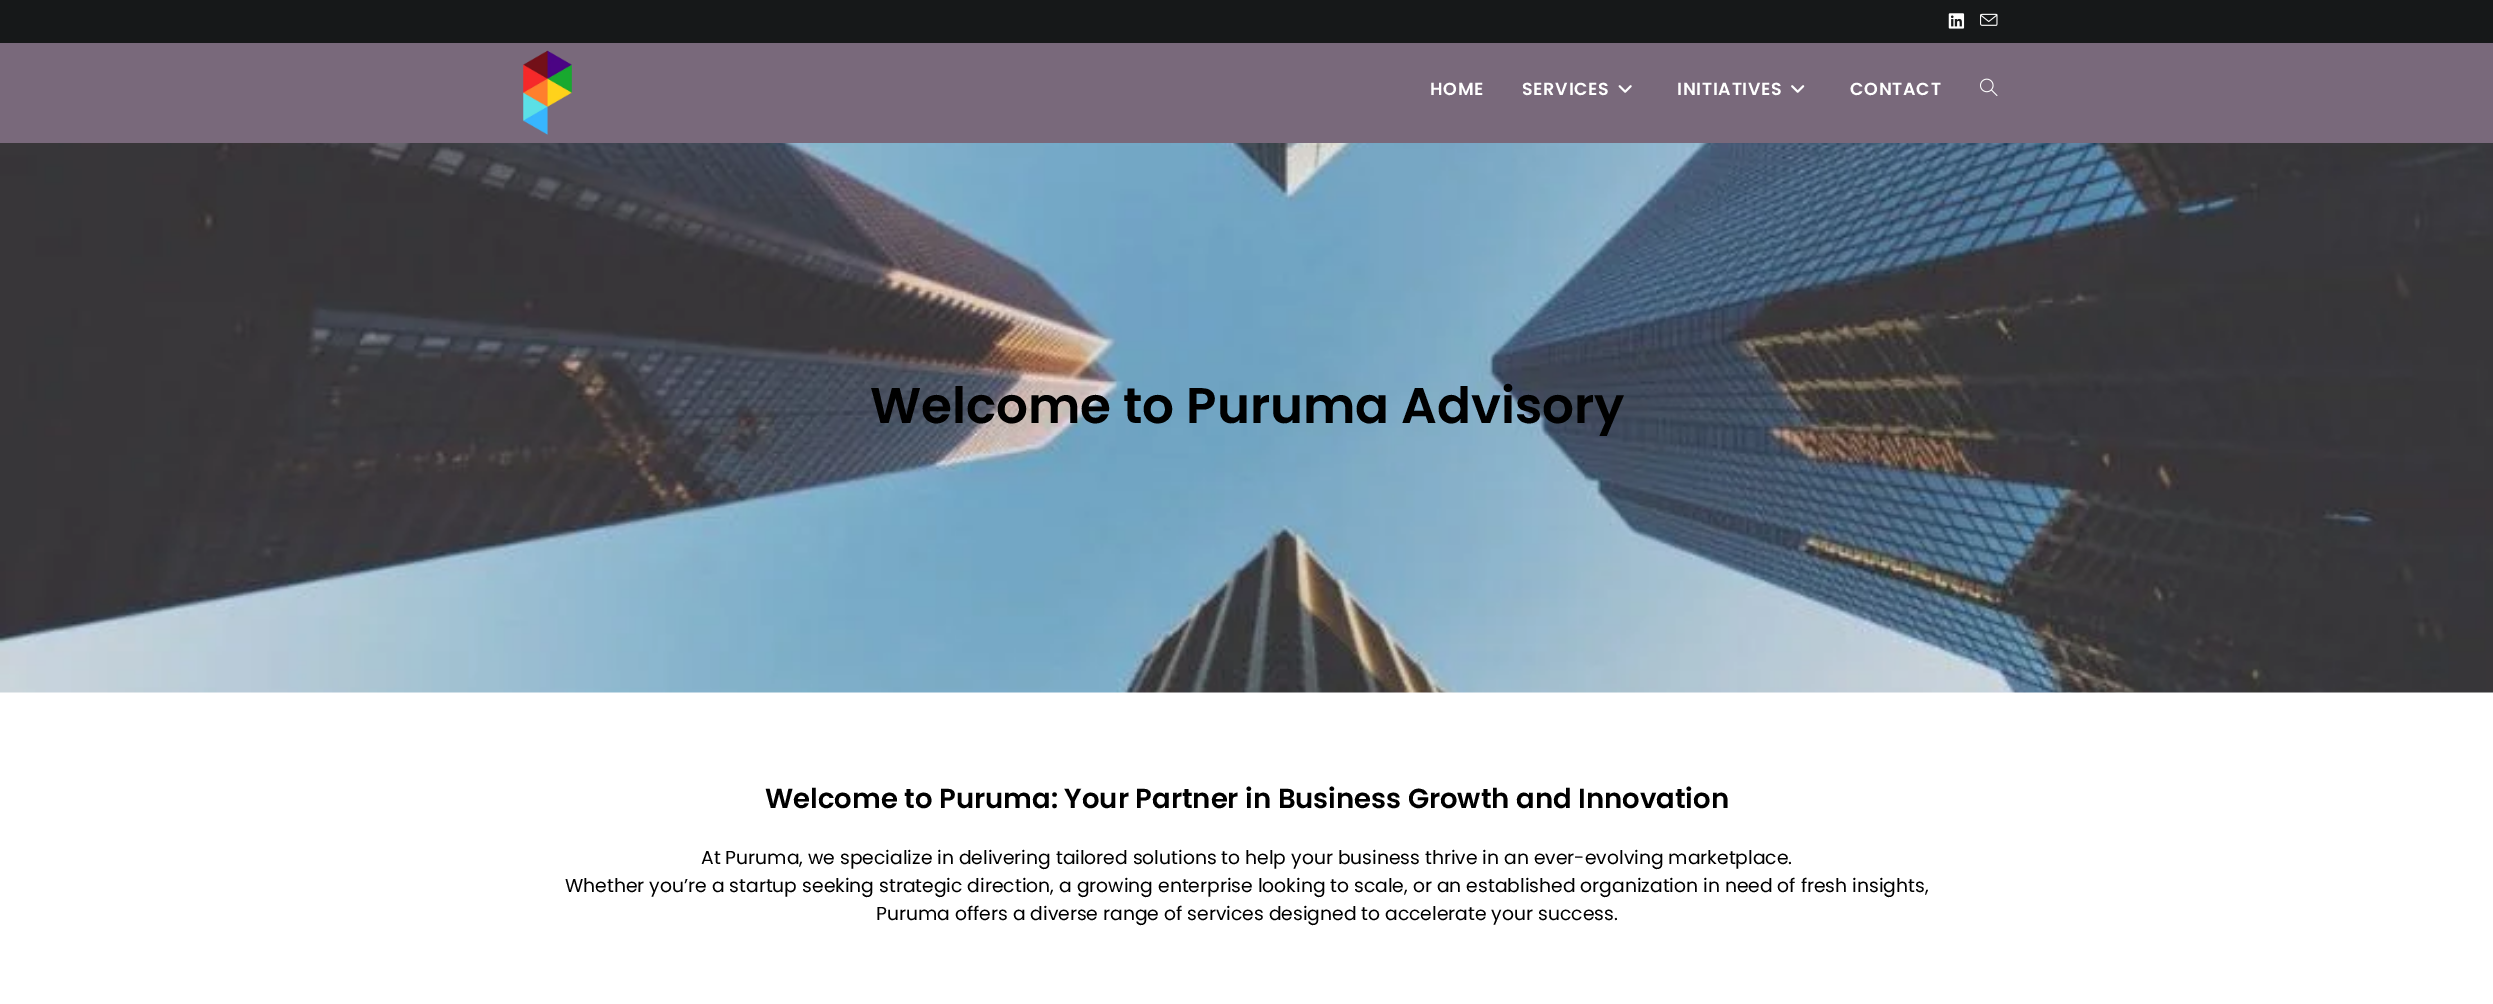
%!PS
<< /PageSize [2493 1004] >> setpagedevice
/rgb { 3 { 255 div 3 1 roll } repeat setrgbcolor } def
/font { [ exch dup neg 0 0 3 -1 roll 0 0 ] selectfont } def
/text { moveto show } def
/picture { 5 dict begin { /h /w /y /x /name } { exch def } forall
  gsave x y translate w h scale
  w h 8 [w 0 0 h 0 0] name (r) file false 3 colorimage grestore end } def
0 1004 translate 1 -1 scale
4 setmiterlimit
255 255 255 rgb
0 0 2493 1004 rectfill
22 24 25 rgb
0 0 2493 43 rectfill
(img_01.rgb) 1948 13 17 16 picture
(img_02.rgb) 1980 13 18 13 picture
121 105 123 rgb
0 43 2493 100 rectfill
(img_03.rgb) 523 50 49 85 picture
(img_04.rgb) 1618 85 14 8 picture
(img_05.rgb) 1791 85 14 8 picture
(img_06.rgb) 1980 78 18 18 picture
(img_07.rgb) 0 143 2493 550 picture
/Poppins-SemiBold 17.5 font
255 255 255 rgb
1430 95 moveto 0.75 0 (HOME) ashow
1522 95 moveto 0.75 0 (SERVICES) ashow
1677 95 moveto 0.75 0 (INITIATIVES) ashow
1850 95 moveto 0.75 0 (CONTACT) ashow
/Poppins-SemiBold 50 font
0 0 0 rgb
(Welcome to Puruma Advisory) 870 423 text
/Poppins-SemiBold 27.5 font
(Welcome to Puruma: Your Partner in Business Growth and Innovation) 765 808 text
/Poppins-Regular 18.75 font
(At Puruma, we specialize in delivering tailored solutions to help your business thrive in an ever-evolving marketplace.) 701 864 text
(Whether you’re a startup seeking strategic direction, a growing enterprise looking to scale, or an established organization in need of fresh insights,) 565 892 text
(Puruma offers a diverse range of services designed to accelerate your success.) 876 920 text
showpage
